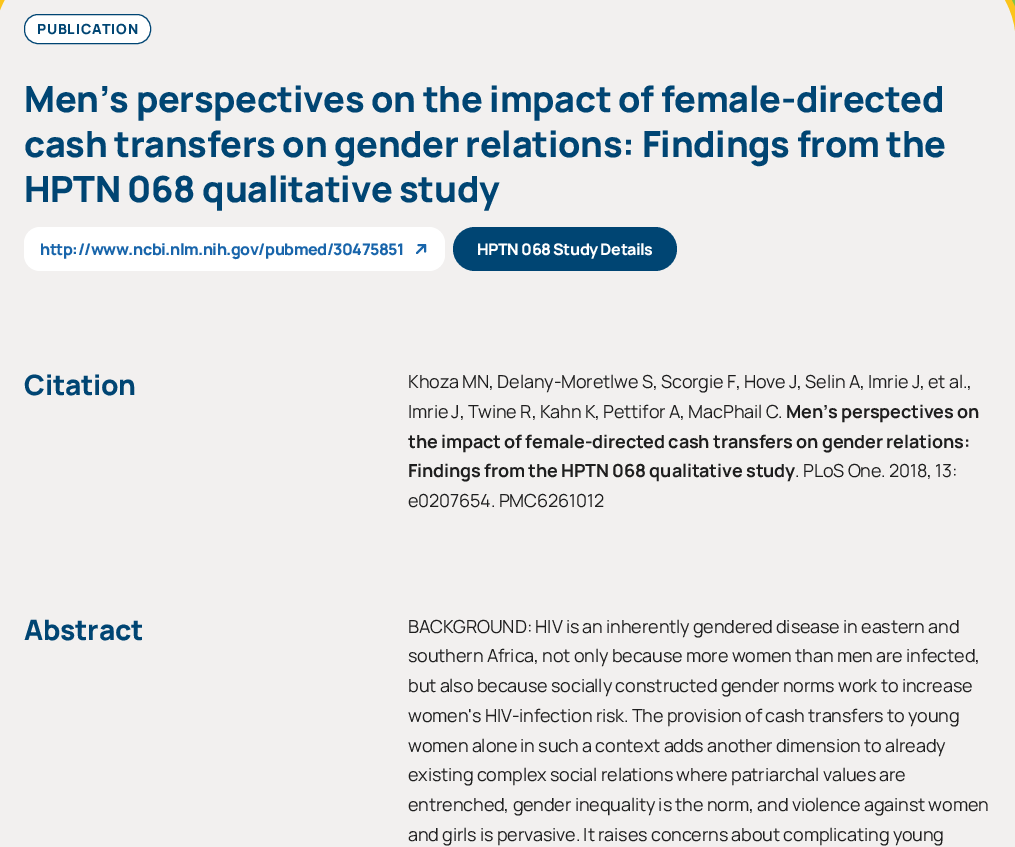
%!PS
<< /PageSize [1015 847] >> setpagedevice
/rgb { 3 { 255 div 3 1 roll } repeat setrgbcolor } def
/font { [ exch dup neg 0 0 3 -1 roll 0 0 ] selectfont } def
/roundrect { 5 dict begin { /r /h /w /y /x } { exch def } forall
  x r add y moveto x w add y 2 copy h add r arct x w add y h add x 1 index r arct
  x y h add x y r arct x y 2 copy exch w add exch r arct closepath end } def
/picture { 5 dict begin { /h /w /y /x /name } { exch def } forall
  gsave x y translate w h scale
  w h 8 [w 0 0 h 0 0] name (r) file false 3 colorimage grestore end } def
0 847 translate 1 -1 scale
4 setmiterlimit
242 240 239 rgb
0 0 1015 847 rectfill
(img_01.rgb) 0 0 5 11 picture
251 196 27 rgb
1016 52 moveto 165 0 rlineto 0 -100 rlineto -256 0 rlineto 50 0 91 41 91 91 rcurveto closepath fill
132 196 65 rgb
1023 52 moveto 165 0 rlineto 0 -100 rlineto -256 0 rlineto 50 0 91 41 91 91 rcurveto closepath fill
255 255 255 rgb
24.5 14.5 126 29 13.5 roundrect gsave fill grestore
0 69 115 rgb
stroke
255 255 255 rgb
24 227 421 44 16 roundrect fill
24 101 171 rgb
2 setlinewidth
1 setlinecap
1 setlinejoin
417 253 moveto 8 -8 rlineto 425 245 moveto -6.5 0 rlineto 425 245 moveto 0 6.5 rlineto stroke
0 69 115 rgb
453 227 224 44 22 roundrect fill
/Manrope-ExtraBold 14 font
37 34 moveto 0.75 0 (PUBLICATION) ashow
/Manrope-ExtraBold 36 font
24 112 moveto -0.35 0 (Men’s perspectives on the impact of female-directed) ashow
24 157 moveto -0.35 0 (cash transfers on gender relations: Findings from the) ashow
24 202 moveto -0.35 0 (HPTN 068 qualitative study) ashow
/Manrope-ExtraBold 16 font
24 101 171 rgb
40 255 moveto -0.5 0 (http://www.ncbi.nlm.nih.gov/pubmed/30475851) ashow
255 255 255 rgb
477 255 moveto -0.5 0 (HPTN 068 Study Details) ashow
/Manrope-ExtraBold 28 font
0 69 115 rgb
24 395 moveto -0.25 0 (Citation) ashow
/Manrope-Regular 18 font
30 30 30 rgb
408 388 moveto -0.15 0 (Khoza MN, Delany-Moretlwe S, Scorgie F, Hove J, Selin A, Imrie J, et al.,) ashow
408 418 moveto -0.15 0 (Imrie J, Twine R, Kahn K, Pettifor A, MacPhail C.) ashow
/Manrope-Bold 18 font
786 418 moveto -0.15 0 (Men’s perspectives on) ashow
408 448 moveto -0.15 0 (the impact of female-directed cash transfers on gender relations:) ashow
408 477 moveto -0.15 0 (Findings from the HPTN 068 qualitative study) ashow
/Manrope-Regular 18 font
795 477 moveto -0.15 0 (. PLoS One. 2018, 13:) ashow
408 507 moveto -0.15 0 (e0207654. PMC6261012) ashow
/Manrope-ExtraBold 28 font
0 69 115 rgb
24 640 moveto -0.25 0 (Abstract) ashow
/Manrope-Regular 18 font
30 30 30 rgb
408 633 moveto -0.15 0 (BACKGROUND: HIV is an inherently gendered disease in eastern and) ashow
408 662 moveto -0.15 0 (southern Africa, not only because more women than men are infected,) ashow
408 692 moveto -0.15 0 (but also because socially constructed gender norms work to increase) ashow
408 722 moveto -0.15 0 (women's HIV-infection risk. The provision of cash transfers to young) ashow
408 752 moveto -0.15 0 (women alone in such a context adds another dimension to already) ashow
408 781 moveto -0.15 0 (existing complex social relations where patriarchal values are) ashow
408 811 moveto -0.15 0 (entrenched, gender inequality is the norm, and violence against women) ashow
408 841 moveto -0.15 0 (and girls is pervasive. It raises concerns about complicating young) ashow
showpage
